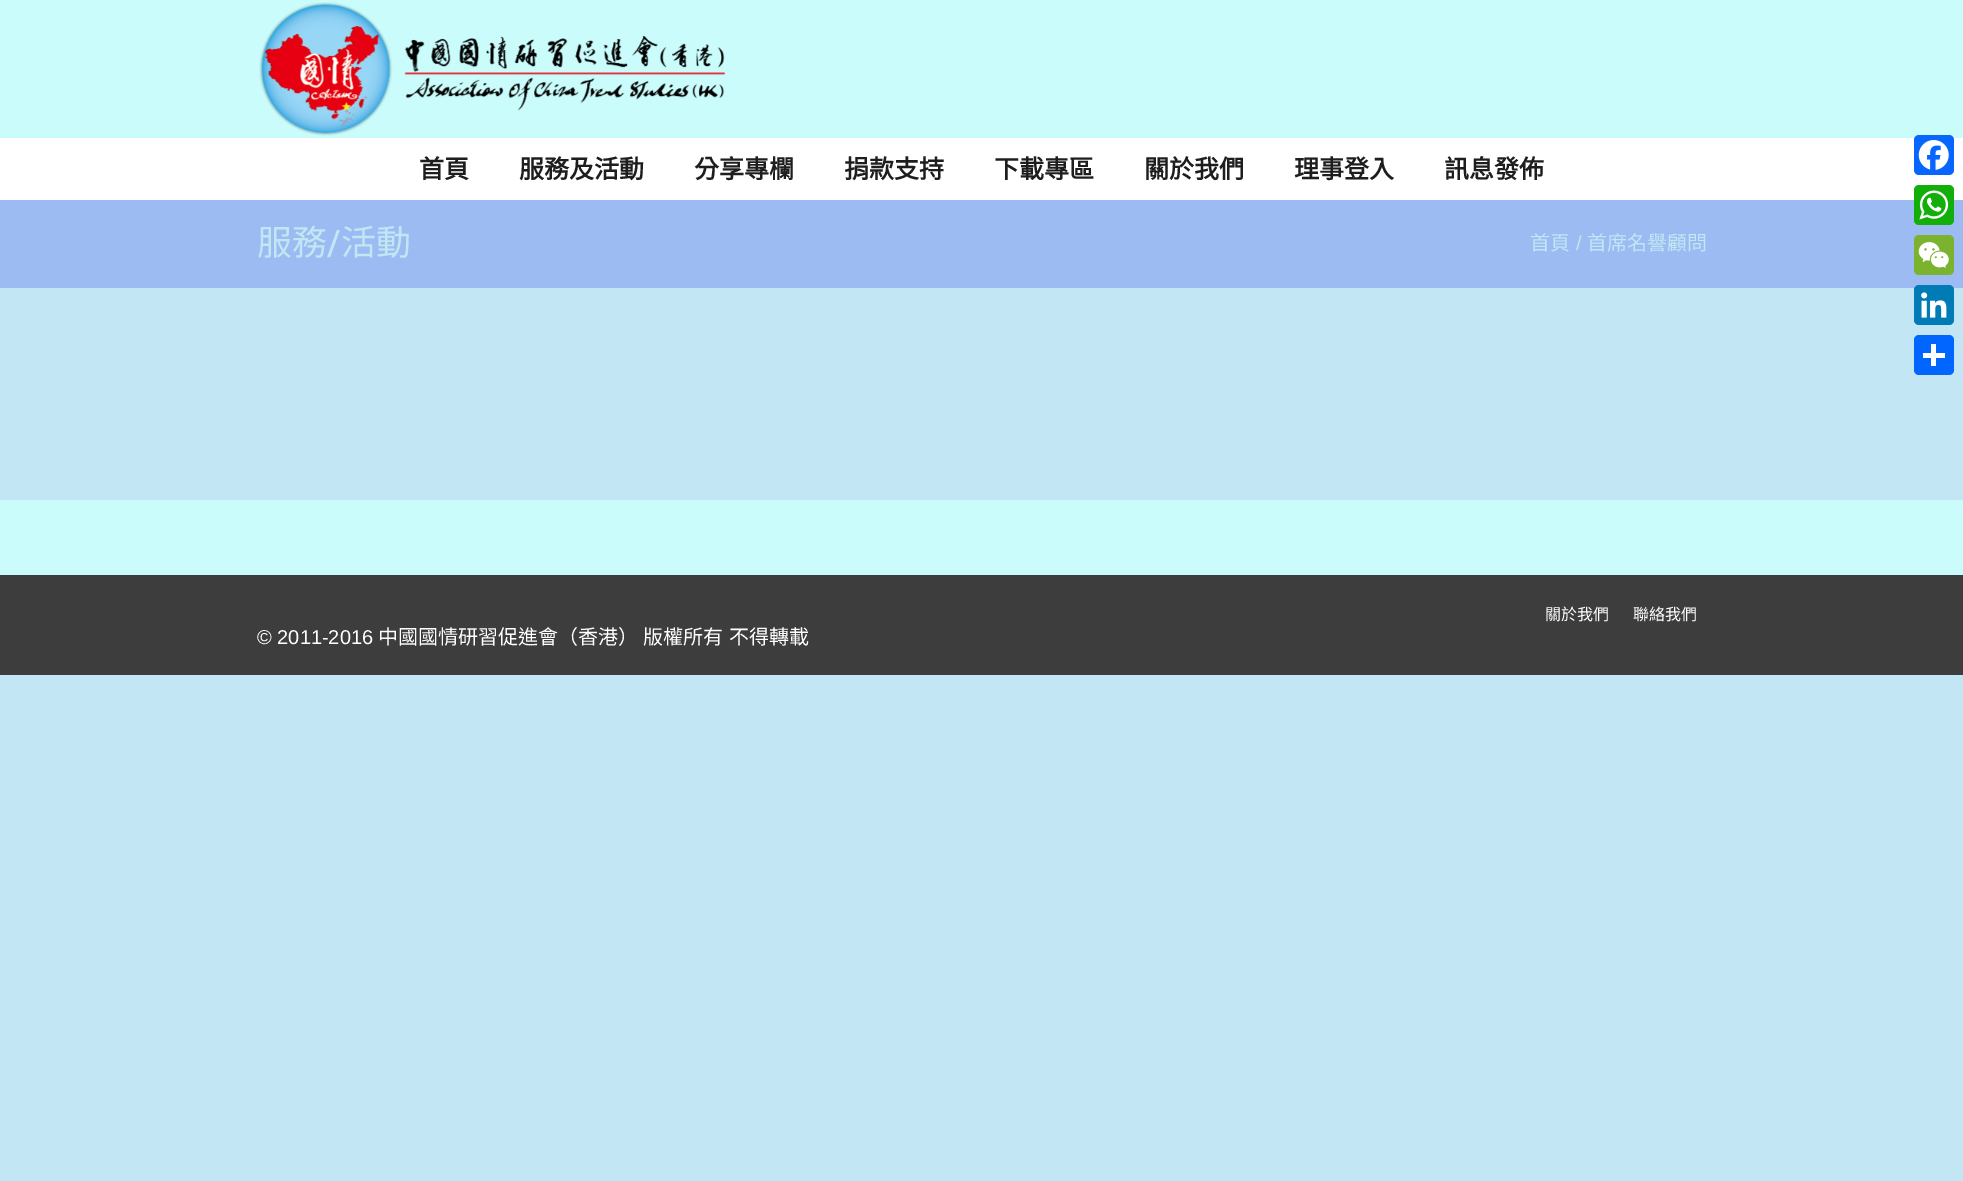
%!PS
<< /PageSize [1963 1181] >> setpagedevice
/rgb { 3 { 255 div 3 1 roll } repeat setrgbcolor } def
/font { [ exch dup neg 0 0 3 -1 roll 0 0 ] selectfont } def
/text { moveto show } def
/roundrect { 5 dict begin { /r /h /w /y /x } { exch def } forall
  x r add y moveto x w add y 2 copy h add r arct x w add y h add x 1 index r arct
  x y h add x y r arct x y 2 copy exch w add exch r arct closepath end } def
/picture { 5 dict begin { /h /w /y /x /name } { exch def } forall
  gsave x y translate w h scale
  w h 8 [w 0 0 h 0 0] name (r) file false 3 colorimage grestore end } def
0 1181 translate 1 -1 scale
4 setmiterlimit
195 230 244 rgb
0 0 1963 1181 rectfill
202 252 251 rgb
0 0 1963 138 rectfill
(img_01.rgb) 259 2 467 134 picture
255 255 255 rgb
0 138 1963 62 rectfill
155 187 242 rgb
0 200 1963 88 rectfill
202 252 251 rgb
0 500 1963 75 rectfill
61 61 61 rgb
0 575 1963 100 rectfill
8 102 255 rgb
1914 135 40 40 5 roundrect fill
(img_02.rgb) 1918 140 31 30 picture
18 175 10 rgb
1914 185 40 40 5 roundrect fill
(img_03.rgb) 1919 190 30 30 picture
123 179 46 rgb
1914 235 40 40 5 roundrect fill
(img_04.rgb) 1918 242 31 26 picture
0 123 181 rgb
1914 285 40 40 5 roundrect fill
(img_05.rgb) 1921 292 26 26 picture
1 102 255 rgb
1914 335 40 40 5 roundrect fill
255 255 255 rgb
1931 344 5 22 rectfill
1923 353 22 5 rectfill
/NotoSansCJKTC-Bold 25 font
30 30 30 rgb
(首頁) 419 178 text
(服務及活動) 519 178 text
(分享專欄) 694 178 text
(捐款支持) 844 178 text
(下載專區) 994 178 text
(關於我們) 1144 178 text
(理事登入) 1294 178 text
(訊息發佈) 1444 178 text
/NotoSansCJKTC-Regular 35 font
195 230 244 rgb
(服務) 257 255 text
/Roboto-Medium 35 font
(/) 327 255 text
/NotoSansCJKTC-Regular 35 font
(活動) 341 255 text
/NotoSansCJKTC-Regular 20 font
(首頁) 1530 250 text
/LiberationSans-Regular 20 font
(/) 1576 250 text
/NotoSansCJKTC-Regular 20 font
(首席名譽顧問) 1587 250 text
/NotoSansCJKTC-Regular 16 font
255 255 255 rgb
(關於我們) 1545 620 text
(聯絡我們) 1633 620 text
/LiberationSans-Regular 20 font
(© 2011-2016) 257 644 text
/NotoSansCJKTC-Regular 20 font
378 644 moveto 1 0 32 (中國國情研習促進會（香港） 版權所有 不得轉載) widthshow
showpage
